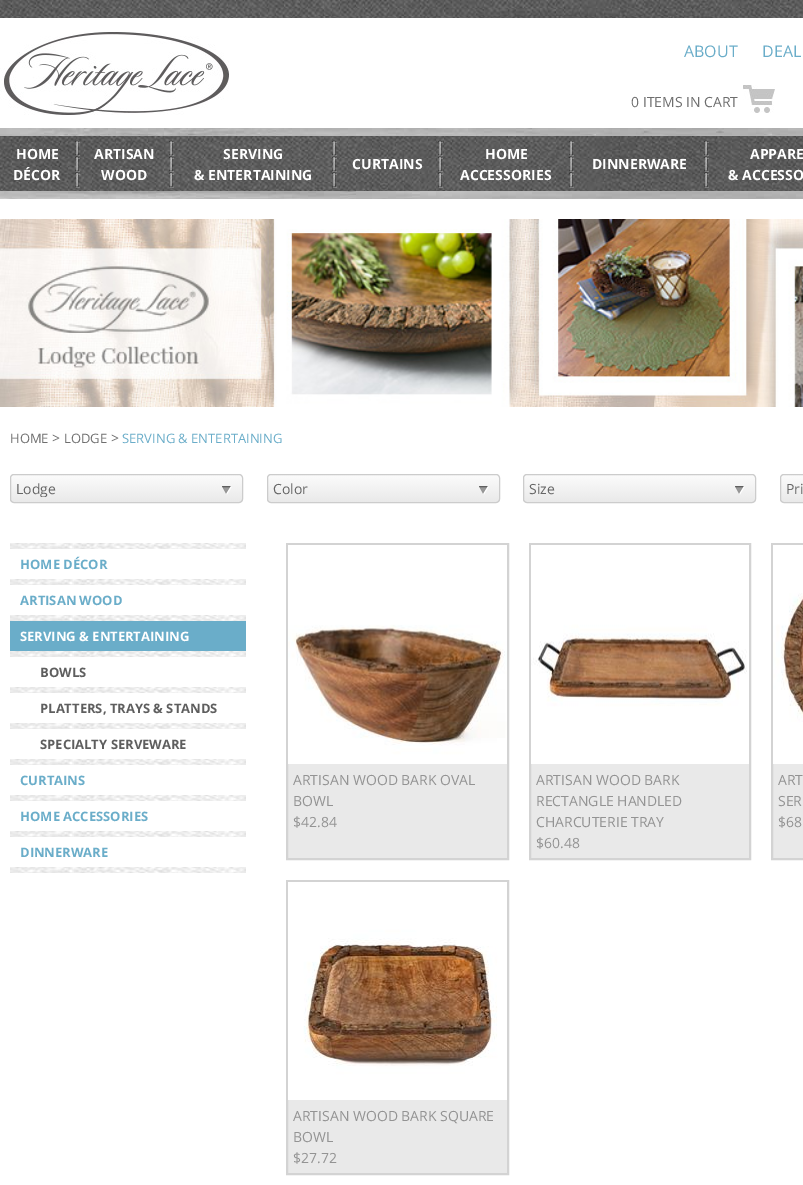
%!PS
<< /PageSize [803 1185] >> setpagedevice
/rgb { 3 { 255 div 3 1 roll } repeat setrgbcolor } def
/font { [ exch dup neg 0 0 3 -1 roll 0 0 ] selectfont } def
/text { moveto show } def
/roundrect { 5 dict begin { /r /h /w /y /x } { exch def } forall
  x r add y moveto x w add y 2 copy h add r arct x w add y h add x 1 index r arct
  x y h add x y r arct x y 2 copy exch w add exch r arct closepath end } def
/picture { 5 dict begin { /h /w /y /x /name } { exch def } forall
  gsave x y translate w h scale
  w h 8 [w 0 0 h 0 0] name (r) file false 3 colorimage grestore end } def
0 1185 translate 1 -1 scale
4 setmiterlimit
255 255 255 rgb
0 0 803 1185 rectfill
(img_01.rgb) 0 0 803 18 picture
(img_02.rgb) 0 32 229 83 picture
(img_03.rgb) 743 85 32 28 picture
(img_04.rgb) 0 128 803 71 picture
(img_05.rgb) 0 136 803 55 picture
(img_06.rgb) 75 140 5 48 picture
(img_07.rgb) 169 140 5 48 picture
(img_08.rgb) 332 140 5 48 picture
(img_09.rgb) 438 140 5 48 picture
(img_10.rgb) 569 140 5 48 picture
(img_11.rgb) 704 140 5 48 picture
(img_12.rgb) 0 219 803 188 picture
(img_13.rgb) 10 474 233 29 picture
204 204 204 rgb
10.5 474.5 232 28 3.5 roundrect stroke
(img_13.rgb) 267 474 233 29 picture
267.5 474.5 232 28 3.5 roundrect stroke
(img_13.rgb) 523 474 233 29 picture
523.5 474.5 232 28 3.5 roundrect stroke
(img_14.rgb) 780 474 23 29 picture
780.5 474.5 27 28 3.5 roundrect stroke
(img_15.rgb) 10 543 236 6 picture
(img_15.rgb) 10 579 236 6 picture
(img_15.rgb) 10 615 236 6 picture
106 173 201 rgb
10 621 236 30 rectfill
(img_15.rgb) 10 651 236 6 picture
(img_15.rgb) 10 687 236 6 picture
(img_15.rgb) 10 723 236 6 picture
(img_15.rgb) 10 759 236 6 picture
(img_15.rgb) 10 795 236 6 picture
(img_15.rgb) 10 831 236 6 picture
(img_15.rgb) 10 867 236 6 picture
233 233 233 rgb
288 764 219 94 rectfill
211 211 211 rgb
2 setlinewidth
287 544 221 315 rectstroke
(img_16.rgb) 288 545 219 219 picture
233 233 233 rgb
531 764 218 94 rectfill
211 211 211 rgb
530 544 220 315 rectstroke
(img_17.rgb) 531 545 218 219 picture
233 233 233 rgb
773 764 30 94 rectfill
211 211 211 rgb
772 544 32 315 rectstroke
(img_18.rgb) 773 545 30 219 picture
233 233 233 rgb
288 1100 219 73 rectfill
211 211 211 rgb
287 881 221 293 rectstroke
(img_19.rgb) 288 882 219 218 picture
/OpenSans-Regular 16 font
106 173 201 rgb
(ABOUT) 684 57 text
(DEAL) 762 57 text
/OpenSans-Regular 14 font
110 110 110 rgb
(0 ITEMS IN CART) 631 107 text
/OpenSans-Bold 14 font
255 255 255 rgb
(HOME) 16 159 text
(DÉCOR) 13 180 text
(ARTISAN) 94 159 text
(WOOD) 101 180 text
(SERVING) 223 159 text
(& ENTERTAINING) 194 180 text
(CURTAINS) 352 169 text
(HOME) 485 159 text
(ACCESSORIES) 460 180 text
(DINNERWARE) 592 169 text
(APPARE) 750 159 text
(& ACCESSO) 728 180 text
/OpenSans-Regular 13 font
110 110 110 rgb
(HOME) 10 443 text
/OpenSans-Regular 14 font
(>) 52 443 text
/OpenSans-Regular 13 font
(LODGE) 64 443 text
/OpenSans-Regular 14 font
(>) 111 443 text
/OpenSans-Regular 13 font
106 173 201 rgb
(SERVING & ENTERTAINING) 122 443 text
gsave
16 481 204 16 rectclip
/OpenSans-Regular 14 font
102 102 102 rgb
(Lodge) 16 494 text
grestore
/OpenSans-Regular 14 font
102 102 102 rgb
(Color) 273 494 text
(Size) 529 494 text
(Pri) 786 494 text
/OpenSans-Bold 13 font
106 173 201 rgb
(HOME DÉCOR) 20 569 text
(ARTISAN WOOD) 20 605 text
255 255 255 rgb
(SERVING & ENTERTAINING) 20 641 text
94 94 94 rgb
(BOWLS) 40 677 text
(PLATTERS, TRAYS & STANDS) 40 713 text
(SPECIALTY SERVEWARE) 40 749 text
106 173 201 rgb
(CURTAINS) 20 785 text
(HOME ACCESSORIES) 20 821 text
(DINNERWARE) 20 857 text
/OpenSans-Regular 14 font
147 147 147 rgb
(ARTISAN WOOD BARK OVAL) 293 785 text
(BOWL) 293 806 text
($42.84) 293 827 text
(ARTISAN WOOD BARK) 536 785 text
(RECTANGLE HANDLED) 536 806 text
(CHARCUTERIE TRAY) 536 827 text
($60.48) 536 848 text
(ART) 778 785 text
(SER) 778 806 text
($68) 778 827 text
(ARTISAN WOOD BARK SQUARE) 293 1121 text
(BOWL) 293 1142 text
($27.72) 293 1163 text
showpage
